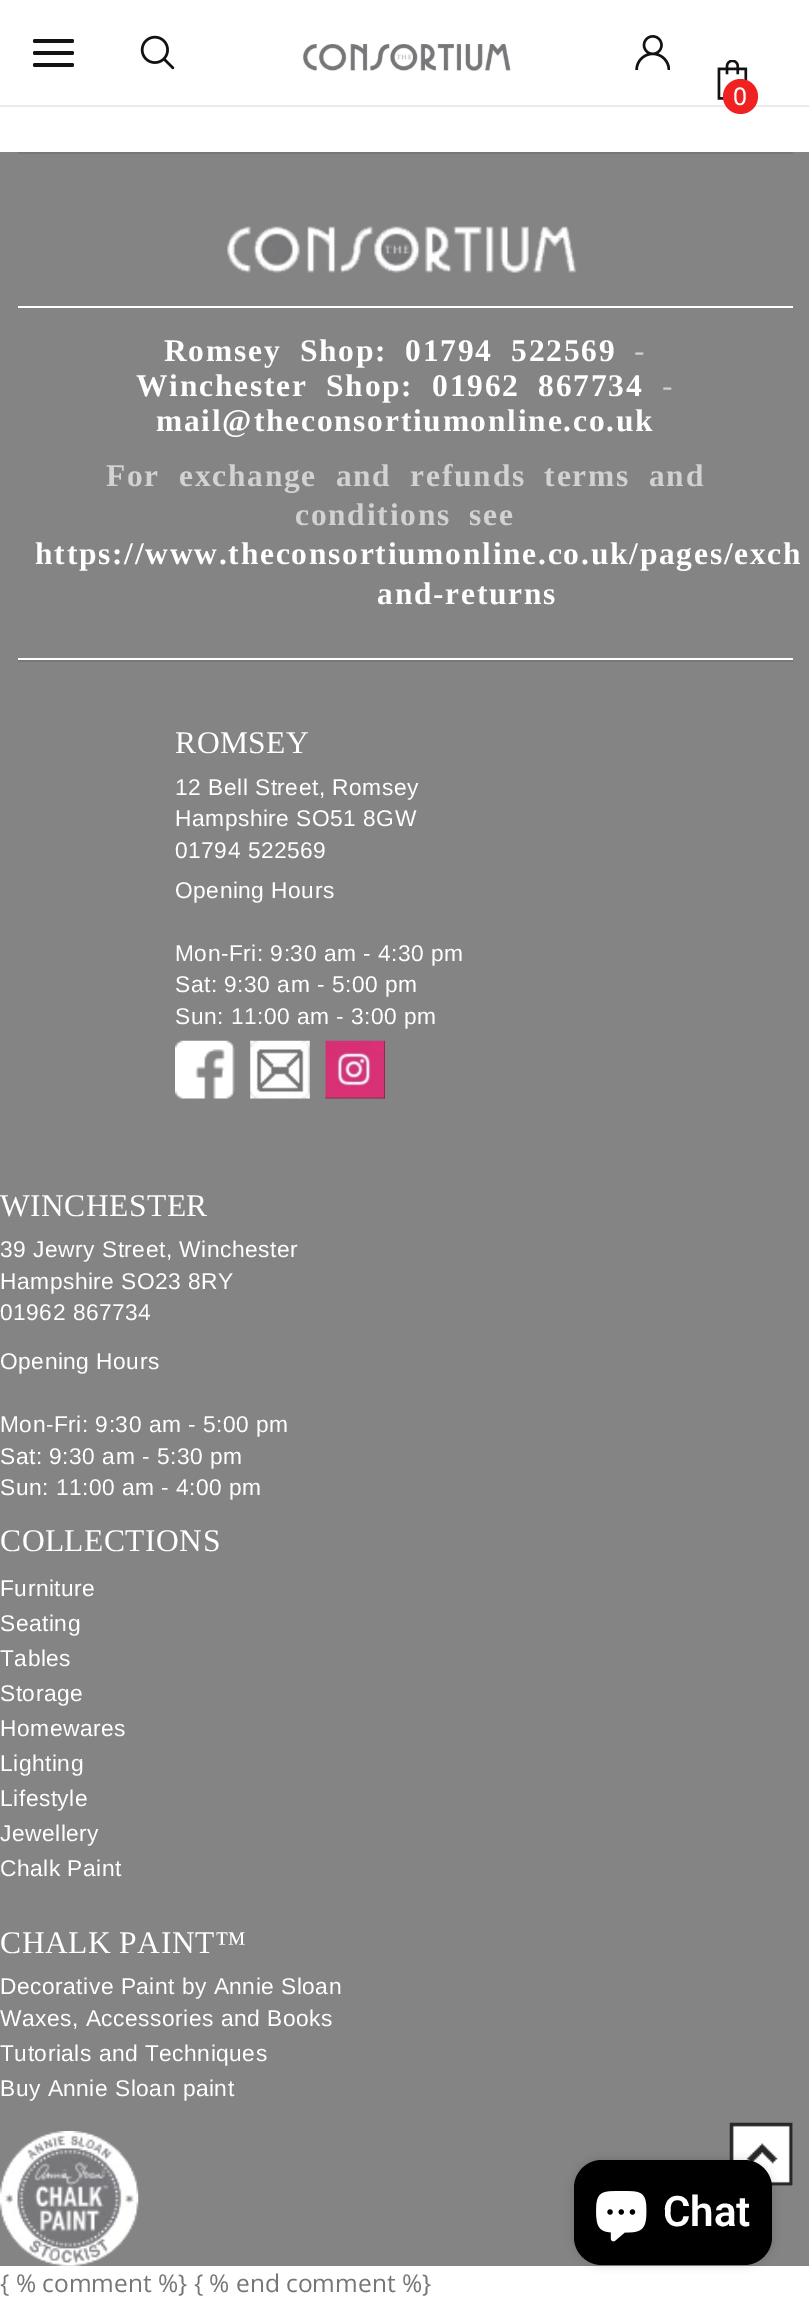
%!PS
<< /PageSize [809 2301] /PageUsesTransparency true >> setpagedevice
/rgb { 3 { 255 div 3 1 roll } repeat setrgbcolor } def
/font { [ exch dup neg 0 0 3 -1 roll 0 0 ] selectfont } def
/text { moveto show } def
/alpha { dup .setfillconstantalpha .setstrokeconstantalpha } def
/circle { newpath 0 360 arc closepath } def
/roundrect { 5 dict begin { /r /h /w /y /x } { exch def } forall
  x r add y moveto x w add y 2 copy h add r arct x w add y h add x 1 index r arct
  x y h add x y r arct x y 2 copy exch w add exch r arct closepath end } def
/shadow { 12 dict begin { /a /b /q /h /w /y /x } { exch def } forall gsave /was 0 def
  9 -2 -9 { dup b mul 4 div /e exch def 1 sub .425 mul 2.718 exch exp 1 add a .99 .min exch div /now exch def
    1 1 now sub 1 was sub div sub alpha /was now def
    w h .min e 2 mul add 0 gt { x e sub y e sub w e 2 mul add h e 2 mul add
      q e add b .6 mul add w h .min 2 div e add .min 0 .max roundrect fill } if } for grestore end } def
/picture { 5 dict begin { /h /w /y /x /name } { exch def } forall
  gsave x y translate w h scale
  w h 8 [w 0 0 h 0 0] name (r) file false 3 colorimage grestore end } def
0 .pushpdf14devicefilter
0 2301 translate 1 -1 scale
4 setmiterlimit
255 255 255 rgb
0 0 809 2301 rectfill
235 235 235 rgb
0 105 809 2 rectfill
18 18 18 rgb
33 51 41 4 2 roundrect fill
33 39 41 4 2 roundrect fill
33 63 41 4 2 roundrect fill
(img_01.rgb) 140 35 35 35 picture
(img_02.rgb) 302 44 209 27 picture
(img_03.rgb) 635 35 35 35 picture
(img_04.rgb) 717 60 31 40 picture
240 33 33 rgb
740.5 96.5 17.5 circle fill
132 132 132 rgb
0 152 809 2114 rectfill
119 119 119 rgb
18 152 775 2 rectfill
18 660 775 2 rectfill
(img_05.rgb) 227 226 350 47 picture
255 255 255 rgb
18 306 775 2 rectfill
18 658 775 2 rectfill
(img_06.rgb) 175 1040 60 59 picture
(img_07.rgb) 250 1040 60 59 picture
(img_08.rgb) 325 1040 60 59 picture
(img_09.rgb) 0 2131 139 135 picture
732 2123 61 63 rectfill
(img_10.rgb) 729 2122 64 64 picture
0 0 0 rgb
574 2160 198 105 28 4.5 0.15 shadow
574 2160 198 105 28 roundrect fill
(img_11.rgb) 596 2191 51 51 picture
/OpenSans-Medium 24.5 font
255 255 255 rgb
733 105 moveto 0.5 0 (0) ashow
/LiberationSerif-Bold 31.5 font
164 361 moveto 9 0 32 1.75 0 (Romsey Shop:) awidthshow
405 361 moveto 9 0 32 1.75 0 (01794 522569) awidthshow
/LiberationSerif-Regular 31.5 font
210 210 210 rgb
634 361 moveto 1.75 0 (-) ashow
/LiberationSerif-Bold 31.5 font
255 255 255 rgb
136 396 moveto 9 0 32 1.75 0 (Winchester Shop:) awidthshow
432 396 moveto 9 0 32 1.75 0 (01962 867734) awidthshow
/LiberationSerif-Regular 31.5 font
210 210 210 rgb
662 396 moveto 1.75 0 (-) ashow
/LiberationSerif-Bold 31.5 font
255 255 255 rgb
156 431 moveto 1.75 0 (mail@theconsortiumonline.co.uk) ashow
210 210 210 rgb
106 486 moveto 9 0 32 1.75 0 (For exchange and refunds terms and) awidthshow
295 525 moveto 9 0 32 1.75 0 (conditions see) awidthshow
255 255 255 rgb
35 564 moveto 1.75 0 (https://www.theconsortiumonline.co.uk/pages/exch) ashow
377 604 moveto 1.75 0 (and-returns) ashow
/LiberationSerif-Regular 31.5 font
175 753 moveto 0.5 0 (ROMSEY) ashow
/LiberationSans-Regular 22.75 font
175 795 moveto 0.5 0 (12 Bell Street, Romsey) ashow
175 826 moveto 0.5 0 (Hampshire SO51 8GW) ashow
175 858 moveto 0.5 0 (01794 522569) ashow
175 898 moveto 0.5 0 (Opening Hours) ashow
175 961 moveto 0.5 0 (Mon-Fri: 9:30 am - 4:30 pm) ashow
175 992 moveto 0.5 0 (Sat: 9:30 am - 5:00 pm) ashow
175 1024 moveto 0.5 0 (Sun: 11:00 am - 3:00 pm) ashow
/LiberationSerif-Regular 31.5 font
0 1216 moveto 0.5 0 (WINCHESTER) ashow
/LiberationSans-Regular 22.75 font
0 1257 moveto 0.5 0 (39 Jewry Street, Winchester) ashow
0 1289 moveto 0.5 0 (Hampshire SO23 8RY) ashow
0 1320 moveto 0.5 0 (01962 867734) ashow
0 1369 moveto 0.5 0 (Opening Hours) ashow
0 1432 moveto 0.5 0 (Mon-Fri: 9:30 am - 5:00 pm) ashow
0 1464 moveto 0.5 0 (Sat: 9:30 am - 5:30 pm) ashow
0 1495 moveto 0.5 0 (Sun: 11:00 am - 4:00 pm) ashow
/LiberationSerif-Regular 31.5 font
0 1551 moveto 0.5 0 (COLLECTIONS) ashow
/LiberationSans-Regular 22.75 font
0 1596 moveto 0.5 0 (Furniture) ashow
0 1631 moveto 0.5 0 (Seating) ashow
0 1666 moveto 0.5 0 (Tables) ashow
0 1701 moveto 0.5 0 (Storage) ashow
0 1736 moveto 0.5 0 (Homewares) ashow
0 1771 moveto 0.5 0 (Lighting) ashow
0 1806 moveto 0.5 0 (Lifestyle) ashow
0 1841 moveto 0.5 0 (Jewellery) ashow
0 1876 moveto 0.5 0 (Chalk Paint) ashow
/LiberationSerif-Regular 31.5 font
0 1953 moveto 0.5 0 (CHALK PAINT™) ashow
/LiberationSans-Regular 22.75 font
0 1994 moveto 0.5 0 (Decorative Paint by Annie Sloan) ashow
0 2026 moveto 0.5 0 (Waxes, Accessories and Books) ashow
0 2061 moveto 0.5 0 (Tutorials and Techniques) ashow
0 2096 moveto 0.5 0 (Buy Annie Sloan paint) ashow
/OpenSans-Regular 24.5 font
118 118 118 rgb
({ % comment %} { % end comment %}) 0 2292 text
/Roboto-SemiBold 42 font
255 255 255 rgb
(Chat) 663 2226 text
.poppdf14devicefilter showpage
